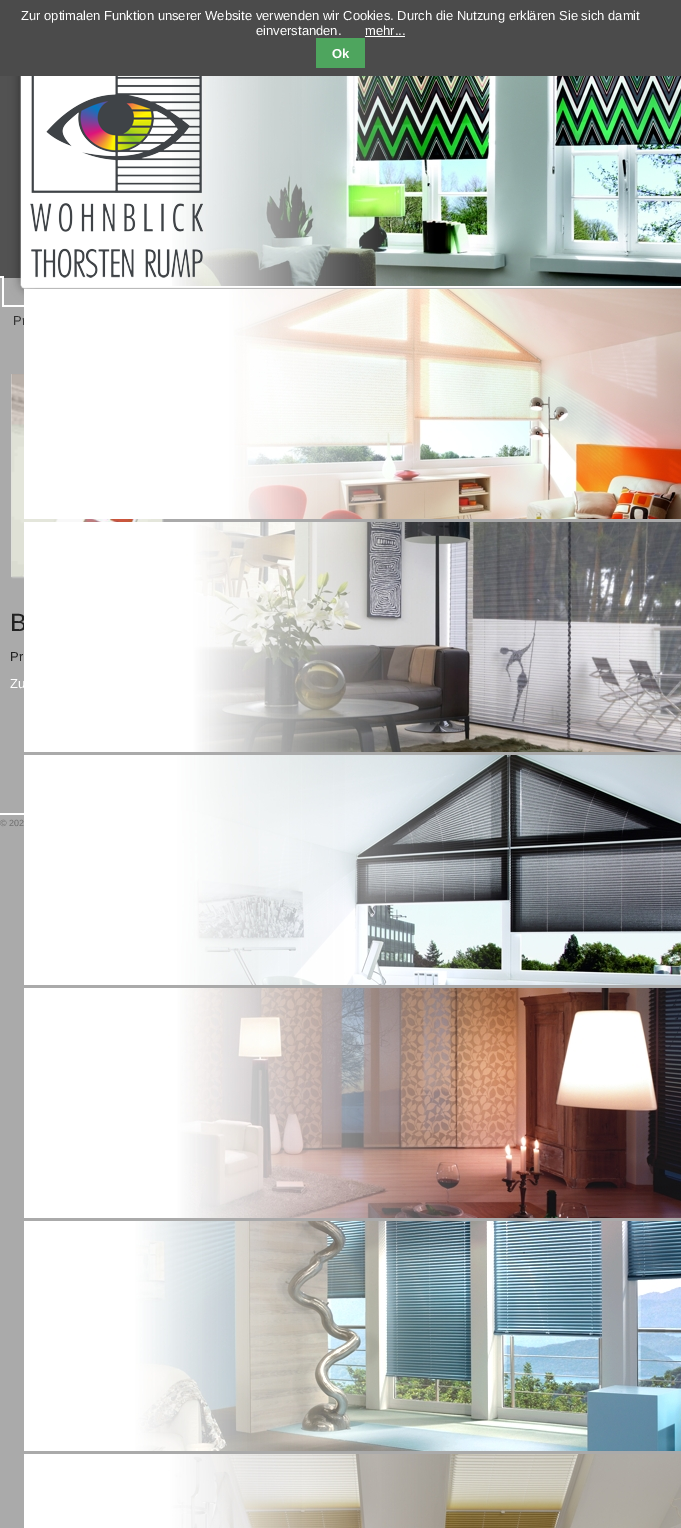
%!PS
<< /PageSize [681 1528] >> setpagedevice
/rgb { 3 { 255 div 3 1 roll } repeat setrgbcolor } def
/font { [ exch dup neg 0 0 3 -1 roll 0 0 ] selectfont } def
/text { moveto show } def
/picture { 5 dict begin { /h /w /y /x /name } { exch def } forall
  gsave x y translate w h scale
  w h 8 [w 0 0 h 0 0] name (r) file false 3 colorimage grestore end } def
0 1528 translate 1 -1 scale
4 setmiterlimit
170 170 170 rgb
0 0 681 1528 rectfill
(img_01.rgb) 0 76 2 202 picture
75 75 75 rgb
0 0 681 76 rectfill
255 255 255 rgb
365 36 40 1 rectfill
78 165 94 rgb
316 38 49 30 rectfill
(img_02.rgb) 2 76 679 231 picture
(img_03.rgb) 172 76 509 210 picture
(img_06.rgb) 24 755 657 230 picture
(img_07.rgb) 24 988 657 230 picture
(img_08.rgb) 24 1221 657 230 picture
(img_09.rgb) 24 1454 657 74 picture
(img_10.rgb) 30 76 173 202 picture
(img_11.rgb) 11 374 153 205 picture
255 255 255 rgb
0 813 24 2 rectfill
/LiberationSans-Regular 13 font
(Zur optimalen Funktion unserer Website verwenden wir Cookies. Durch die Nutzung erklären Sie sich damit) 21 20 text
(einverstanden.) 256 35 text
(mehr...) 365 35 text
/LiberationSans-Bold 13 font
(Ok) 332 58 text
/LiberationSans-Regular 13 font
51 51 51 rgb
(Pr) 13 325 text
(img_04.rgb) 24 289 657 230 picture
/LiberationSans-Regular 25 font
34 34 34 rgb
(B) 10 631 text
/LiberationSans-Regular 13 font
(Pr) 10 661 text
255 255 255 rgb
(Zu) 10 688 text
(img_05.rgb) 24 522 657 230 picture
/LiberationSans-Regular 9 font
112 112 112 rgb
(© 202) 0 826 text
showpage
